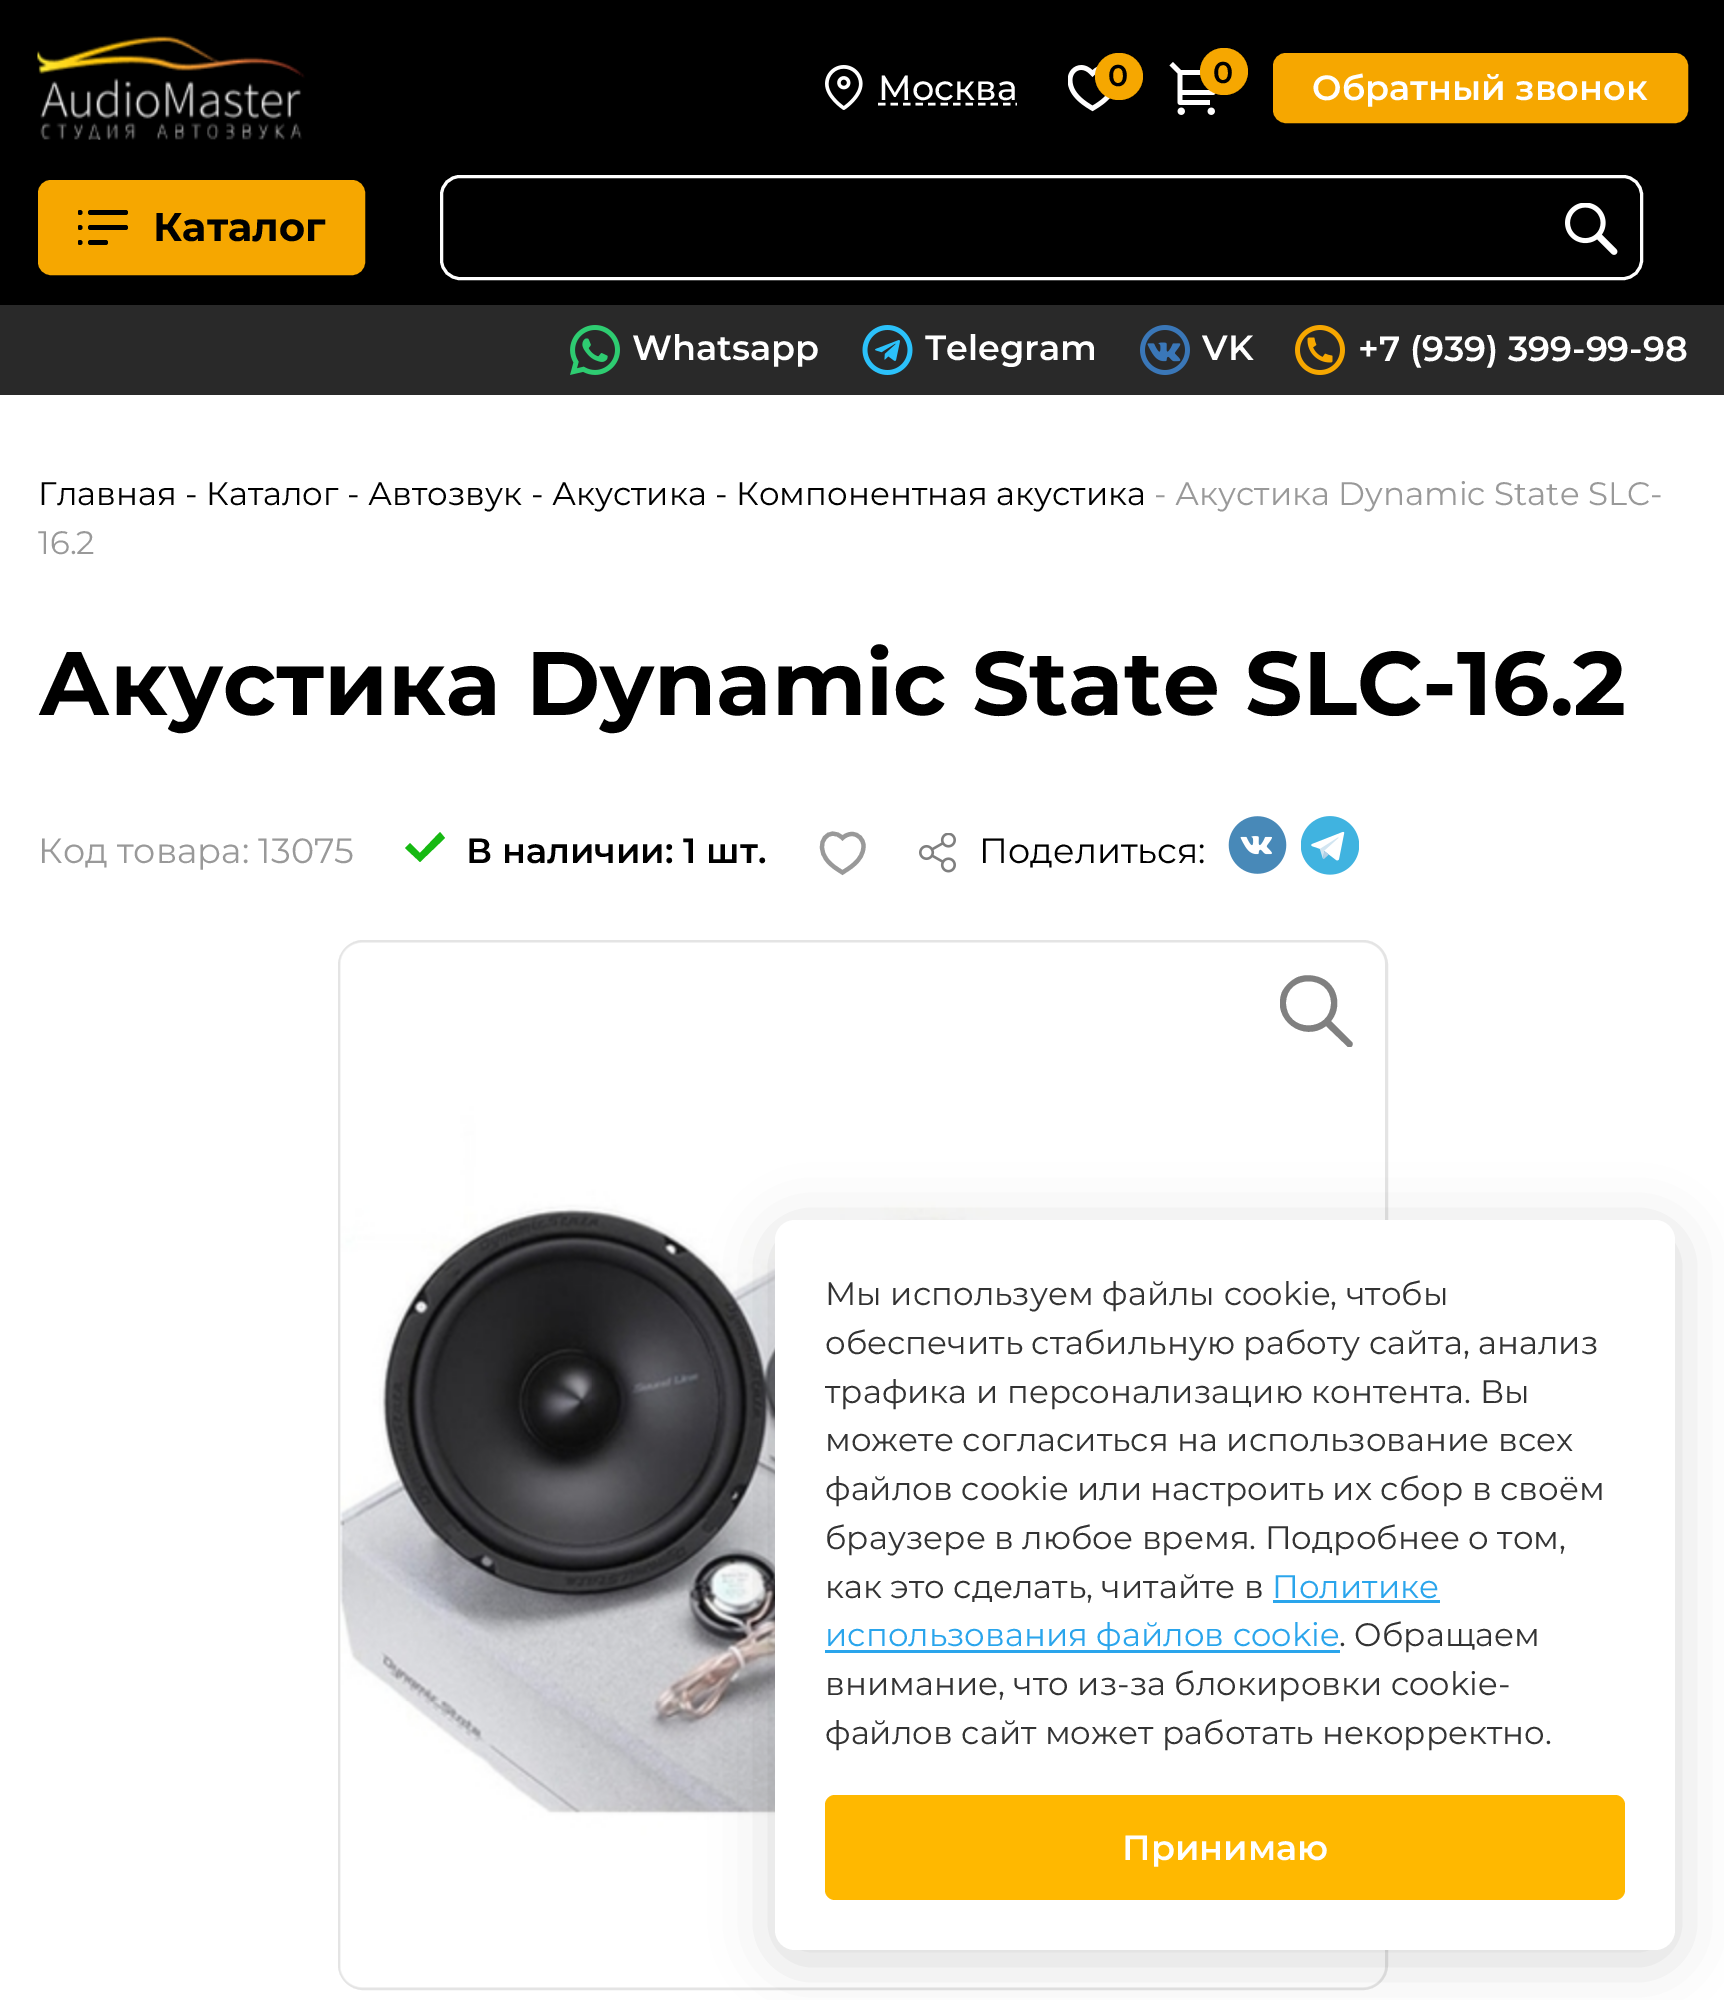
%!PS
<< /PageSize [1724 2000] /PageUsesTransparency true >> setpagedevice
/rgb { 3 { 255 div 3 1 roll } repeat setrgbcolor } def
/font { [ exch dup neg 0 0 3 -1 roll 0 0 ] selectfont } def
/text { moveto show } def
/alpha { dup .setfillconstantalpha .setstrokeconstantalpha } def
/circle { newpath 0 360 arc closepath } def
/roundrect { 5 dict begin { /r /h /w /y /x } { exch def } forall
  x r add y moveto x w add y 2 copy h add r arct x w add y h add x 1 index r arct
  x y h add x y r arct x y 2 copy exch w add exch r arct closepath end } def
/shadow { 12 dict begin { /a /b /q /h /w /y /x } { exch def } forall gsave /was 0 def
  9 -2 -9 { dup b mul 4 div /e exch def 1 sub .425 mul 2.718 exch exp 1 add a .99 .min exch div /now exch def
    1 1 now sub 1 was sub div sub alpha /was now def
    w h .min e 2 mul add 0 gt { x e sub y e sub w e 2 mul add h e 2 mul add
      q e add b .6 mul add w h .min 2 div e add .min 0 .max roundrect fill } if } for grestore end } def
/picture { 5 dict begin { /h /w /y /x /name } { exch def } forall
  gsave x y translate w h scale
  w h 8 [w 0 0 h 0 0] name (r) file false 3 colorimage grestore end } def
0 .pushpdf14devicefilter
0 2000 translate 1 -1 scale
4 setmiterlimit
255 255 255 rgb
0 0 1724 2000 rectfill
0 0 0 rgb
0 0 1724 305 rectfill
(img_01.rgb) 37 36 268 104 picture
(img_02.rgb) 825 65 38 45 picture
255 255 255 rgb
2.5 setlinewidth
[7.5 5] 0 setdash
878 104 moveto 139 0 rlineto stroke
(img_03.rgb) 1068 65 42 47 picture
246 167 0 rgb
1095 53 48 47 23.5 roundrect fill
(img_04.rgb) 1169 62 47 53 picture
1200 48 48 47 23.5 roundrect fill
1274.5 54.5 412 67 11.5 roundrect gsave fill grestore
3 setlinewidth
[] 0 setdash
stroke
39.5 181.5 324 92 11.5 roundrect gsave fill grestore
stroke
0 0 0 rgb
88 240 20 5 2.5 roundrect fill
88 225 40 5 2.5 roundrect fill
88 210 40 5 2.5 roundrect fill
gsave
78 210 50 35 rectclip
80 212.5 2.5 circle fill
80 227.5 2.5 circle fill
80 242.5 2.5 circle fill
grestore
255 255 255 rgb
441.5 176.5 1200 102 18.5 roundrect stroke
(img_05.rgb) 1565 203 53 52 picture
41 41 41 rgb
0 305 1724 90 rectfill
(img_06.rgb) 570 325 50 50 picture
(img_07.rgb) 862 325 51 50 picture
(img_08.rgb) 1140 325 50 50 picture
(img_09.rgb) 1295 325 50 50 picture
22 185 18 rgb
420 853 moveto -10 -10 rlineto -5 5 rlineto 15 14 rlineto 25 -24 rlineto -5 -6 rlineto closepath fill
153 153 153 rgb
4.2 setlinewidth
852 834 moveto 6 0 11.5 5 11.5 12 rcurveto 0 15 -16 23 -21 26.5 rcurveto -5.5 -3.5 -11.5 -7 -15.5 -12.5 rcurveto -13.5 -17 2.5 -35 15.5 -22 rcurveto 2 -2 5.5 -4 9.5 -4 rcurveto closepath stroke
(img_10.rgb) 919 833 37 40 picture
(img_11.rgb) 1228 816 59 58 picture
(img_12.rgb) 1301 816 58 59 picture
228 228 228 rgb
3 setlinewidth
339.5 941.5 1047 1047 23.5 roundrect stroke
(img_13.rgb) 340 942 1045 1046 picture
gsave
1280 975 73 72 rectclip
128 128 128 rgb
1352 1042 moveto -21 -21 rlineto 10 -12 8 -32 -6 -41 rcurveto -8 -5 -19 -6 -27 -3 rcurveto -7 3 -13 9 -16 15 rcurveto -11 28 22 51 44 34 rcurveto 22 21 rlineto 3 2 6 -2 4 -5 rcurveto closepath 1286 1003 moveto 0 -29 45 -29 45 0 rcurveto 0 30 -45 30 -45 0 rcurveto closepath fill
grestore
0 0 0 rgb
775 1230 900 730 20 30 0.15 shadow
255 255 255 rgb
775 1220 900 730 20 roundrect fill
42 165 236 rgb
1273 1600 167 3 rectfill
825 1650 515 3 rectfill
255 184 0 rgb
825 1795 800 105 10 roundrect fill
/Montserrat-Medium 35 font
255 255 255 rgb
(Москва) 878 100 text
/Montserrat-SemiBold 30 font
0 0 0 rgb
(0) 1108 86 text
(0) 1213 83 text
/Montserrat-SemiBold 35 font
255 255 255 rgb
(Обратный звонок) 1312 100 text
/Montserrat-Bold 40 font
0 0 0 rgb
(Каталог) 153 241 text
/Montserrat-SemiBold 35 font
255 255 255 rgb
(Whatsapp) 632 360 text
(Telegram) 925 360 text
(VK) 1202 360 text
(+7 \(939\) 399-99-98) 1358 361 text
/Montserrat-Regular 32.5 font
0 0 0 rgb
(Главная - Каталог - Автозвук - Акустика - Компонентная акустика) 38 505 text
153 153 153 rgb
(- Акустика Dynamic State SLC-) 1154 505 text
(16.2) 38 554 text
/Montserrat-Bold 90 font
0 0 0 rgb
(Акустика Dynamic State SLC-16.2) 38 715 text
/Montserrat-Regular 35 font
153 153 153 rgb
(Код товара: 13075) 38 863 text
/Montserrat-SemiBold 35 font
0 0 0 rgb
(В наличии: 1 шт.) 466 863 text
/Montserrat-Regular 35 font
(Поделиться:) 979 863 text
/Montserrat-Regular 32.5 font
51 51 51 rgb
(Мы используем файлы cookie, чтобы) 825 1305 text
(обеспечить стабильную работу сайта, анализ) 825 1354 text
(трафика и персонализацию контента. Вы) 825 1403 text
(можете согласиться на использование всех) 825 1451 text
(файлов cookie или настроить их сбор в своём) 825 1500 text
(браузере в любое время. Подробнее о том,) 825 1549 text
(как это сделать, читайте в) 825 1598 text
42 165 236 rgb
(Политике) 1272 1598 text
(использования файлов cookie) 825 1646 text
51 51 51 rgb
(. Обращаем) 1339 1646 text
(внимание, что из-за блокировки cookie-) 825 1695 text
(файлов сайт может работать некорректно.) 825 1744 text
/Montserrat-SemiBold 35 font
255 255 255 rgb
(Принимаю) 1122 1860 text
.poppdf14devicefilter showpage
